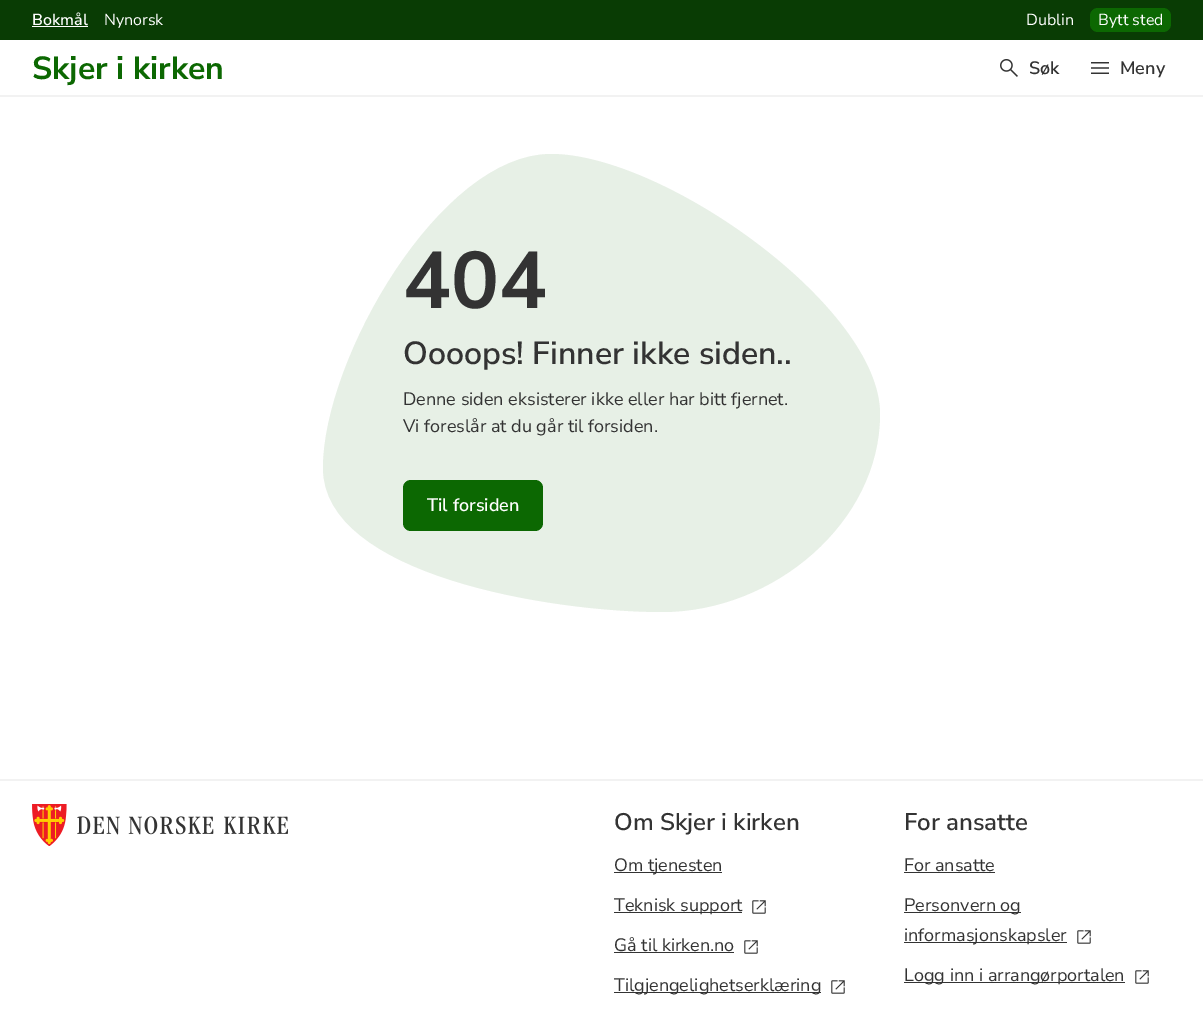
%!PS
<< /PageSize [1203 1034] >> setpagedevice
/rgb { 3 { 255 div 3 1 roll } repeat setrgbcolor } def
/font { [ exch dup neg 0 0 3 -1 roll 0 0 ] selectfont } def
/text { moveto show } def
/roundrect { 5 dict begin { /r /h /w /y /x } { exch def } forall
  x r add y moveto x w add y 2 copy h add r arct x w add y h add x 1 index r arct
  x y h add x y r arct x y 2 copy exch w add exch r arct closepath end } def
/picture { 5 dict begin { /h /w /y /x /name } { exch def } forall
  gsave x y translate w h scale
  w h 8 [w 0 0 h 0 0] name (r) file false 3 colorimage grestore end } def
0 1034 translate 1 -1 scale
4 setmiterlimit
255 255 255 rgb
0 0 1203 1034 rectfill
9 60 4 rgb
0 0 1203 40 rectfill
255 255 255 rgb
32 26 56 1 rectfill
12 104 2 rgb
1090 8 81 24 8 roundrect fill
(img_01.rgb) 1000 59 18 18 picture
(img_02.rgb) 1091 62 18 12 picture
242 242 242 rgb
0 95 1203 2 rectfill
231 240 230 rgb
880 414 moveto 0 108 -106 198 -218 198 rcurveto -111 0 -339 -37 -339 -144 rcurveto 0 -108 117 -314 228 -314 rcurveto 112 0 329 153 329 260 rcurveto closepath fill
12 104 2 rgb
403 480 140 51 8 roundrect fill
242 242 242 rgb
0 779 1203 2 rectfill
(img_03.rgb) 32 804 256 42 picture
51 51 51 rgb
614 872 108 1 rectfill
614 912 128 1 rectfill
(img_04.rgb) 752 900 14 14 picture
614 952 120 1 rectfill
(img_04.rgb) 744 940 14 14 picture
614 992 207 1 rectfill
(img_04.rgb) 831 980 14 14 picture
904 872 91 1 rectfill
904 912 117 1 rectfill
904 942 163 1 rectfill
(img_04.rgb) 1077 930 14 14 picture
904 982 221 1 rectfill
(img_04.rgb) 1135 970 14 14 picture
/NunitoSans-SemiBold 16 font
255 255 255 rgb
(Bokmål) 32 25 text
/NunitoSans-Regular 16 font
(Nynorsk) 104 25 text
(Dublin) 1026 25 text
(Bytt sted) 1098 25 text
/NunitoSans-Bold 32 font
12 104 2 rgb
(Skjer i kirken) 32 79 text
/NunitoSans-SemiBold 18 font
51 51 51 rgb
(Søk) 1029 74 text
(Meny) 1120 74 text
/NunitoSans-Bold 80 font
(404) 403 308 text
/NunitoSans-SemiBold 32 font
(Oooops! Finner ikke siden..) 403 364 text
/NunitoSans-Regular 18 font
(Denne siden eksisterer ikke eller har bitt fjernet.) 403 405 text
(Vi foreslår at du går til forsiden.) 403 432 text
/NunitoSans-SemiBold 18 font
255 255 255 rgb
(Til forsiden) 427 511 text
/NunitoSans-SemiBold 24 font
51 51 51 rgb
(Om Skjer i kirken) 614 830 text
/NunitoSans-Regular 18 font
(Om tjenesten) 614 871 text
(Teknisk support) 614 911 text
(Gå til kirken.no) 614 951 text
(Tilgjengelighetserklæring) 614 991 text
/NunitoSans-SemiBold 24 font
(For ansatte) 904 830 text
/NunitoSans-Regular 18 font
(For ansatte) 904 871 text
(Personvern og) 904 911 text
(informasjonskapsler) 904 941 text
(Logg inn i arrangørportalen) 904 981 text
showpage
